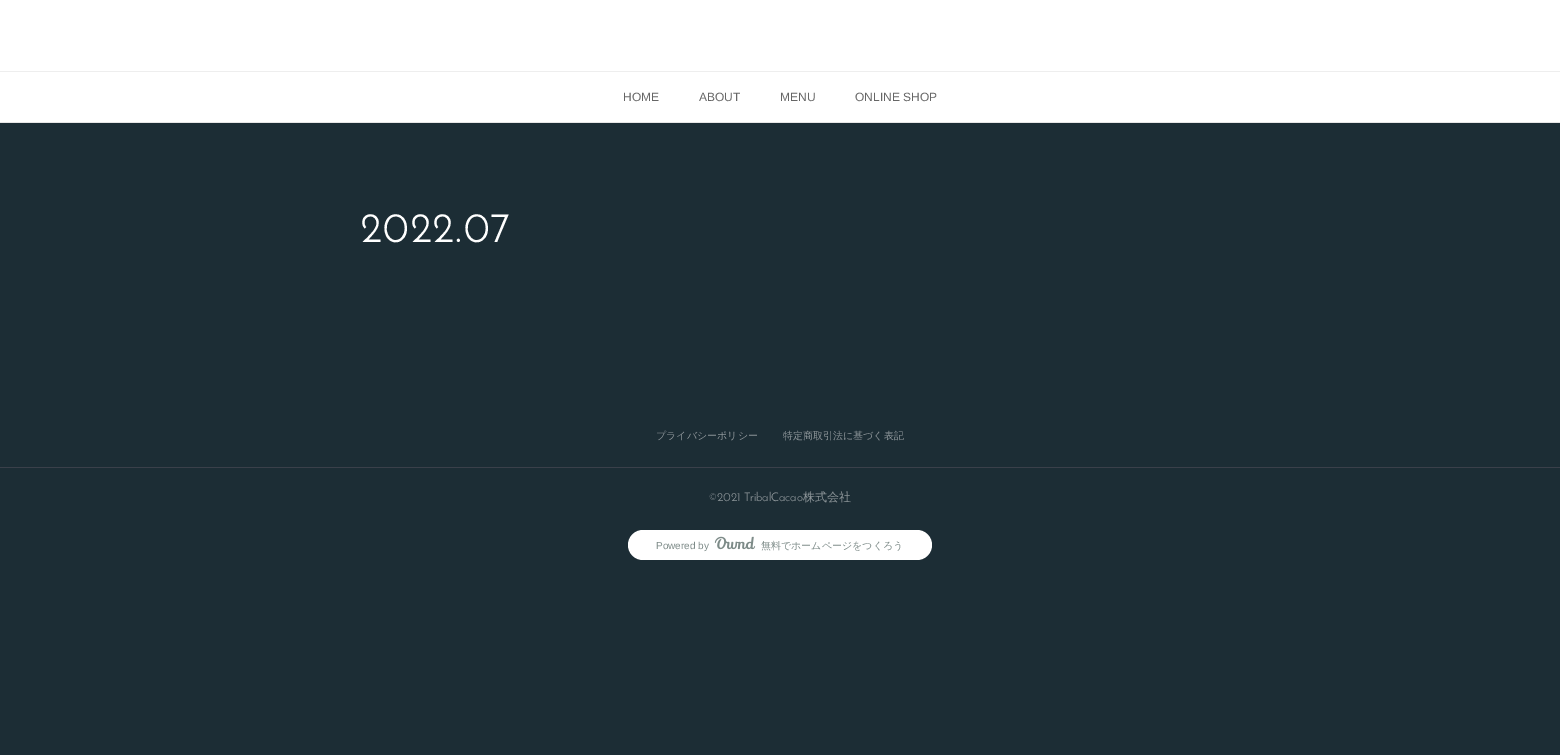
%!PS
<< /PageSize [1560 755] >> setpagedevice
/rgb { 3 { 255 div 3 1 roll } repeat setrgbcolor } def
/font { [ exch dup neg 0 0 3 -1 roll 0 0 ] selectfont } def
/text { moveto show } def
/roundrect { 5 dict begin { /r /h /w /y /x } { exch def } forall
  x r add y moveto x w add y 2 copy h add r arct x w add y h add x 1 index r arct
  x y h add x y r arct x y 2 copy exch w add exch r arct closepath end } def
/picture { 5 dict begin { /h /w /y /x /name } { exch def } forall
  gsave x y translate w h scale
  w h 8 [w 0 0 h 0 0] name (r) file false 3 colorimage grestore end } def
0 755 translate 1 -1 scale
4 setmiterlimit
28 45 53 rgb
0 0 1560 755 rectfill
255 255 255 rgb
0 0 1560 71 rectfill
238 238 238 rgb
0 71 1560 1 rectfill
255 255 255 rgb
0 72 1560 50 rectfill
230 230 230 rgb
0 122 1560 1 rectfill
58 64 74 rgb
0 467 1560 1 rectfill
255 255 255 rgb
628 530 304 30 15 roundrect fill
(img_01.rgb) 714 536 42 14 picture
/LiberationSans-Regular 12 font
102 102 102 rgb
(HOME) 623 101 text
(ABOUT) 699 101 text
(MENU) 780 101 text
(ONLINE SHOP) 855 101 text
/JosefinSans-Regular 42 font
255 255 255 rgb
(2022.07) 360 242 text
/WenQuanYiZenHei-Medium 10 font
142 150 154 rgb
(プライバシーポリシー) 656 439 text
(特定商取引法に基づく表記) 783 439 text
/JosefinSans-Regular 12 font
(©2021 TribalCacao) 709 501 text
/WenQuanYiZenHei-Medium 12 font
(株式会社) 803 501 text
/LiberationSans-Regular 10 font
125 139 136 rgb
(Powered by) 656 549 text
/WenQuanYiZenHei-Medium 10 font
(無料でホームページをつくろう) 761 549 text
showpage
